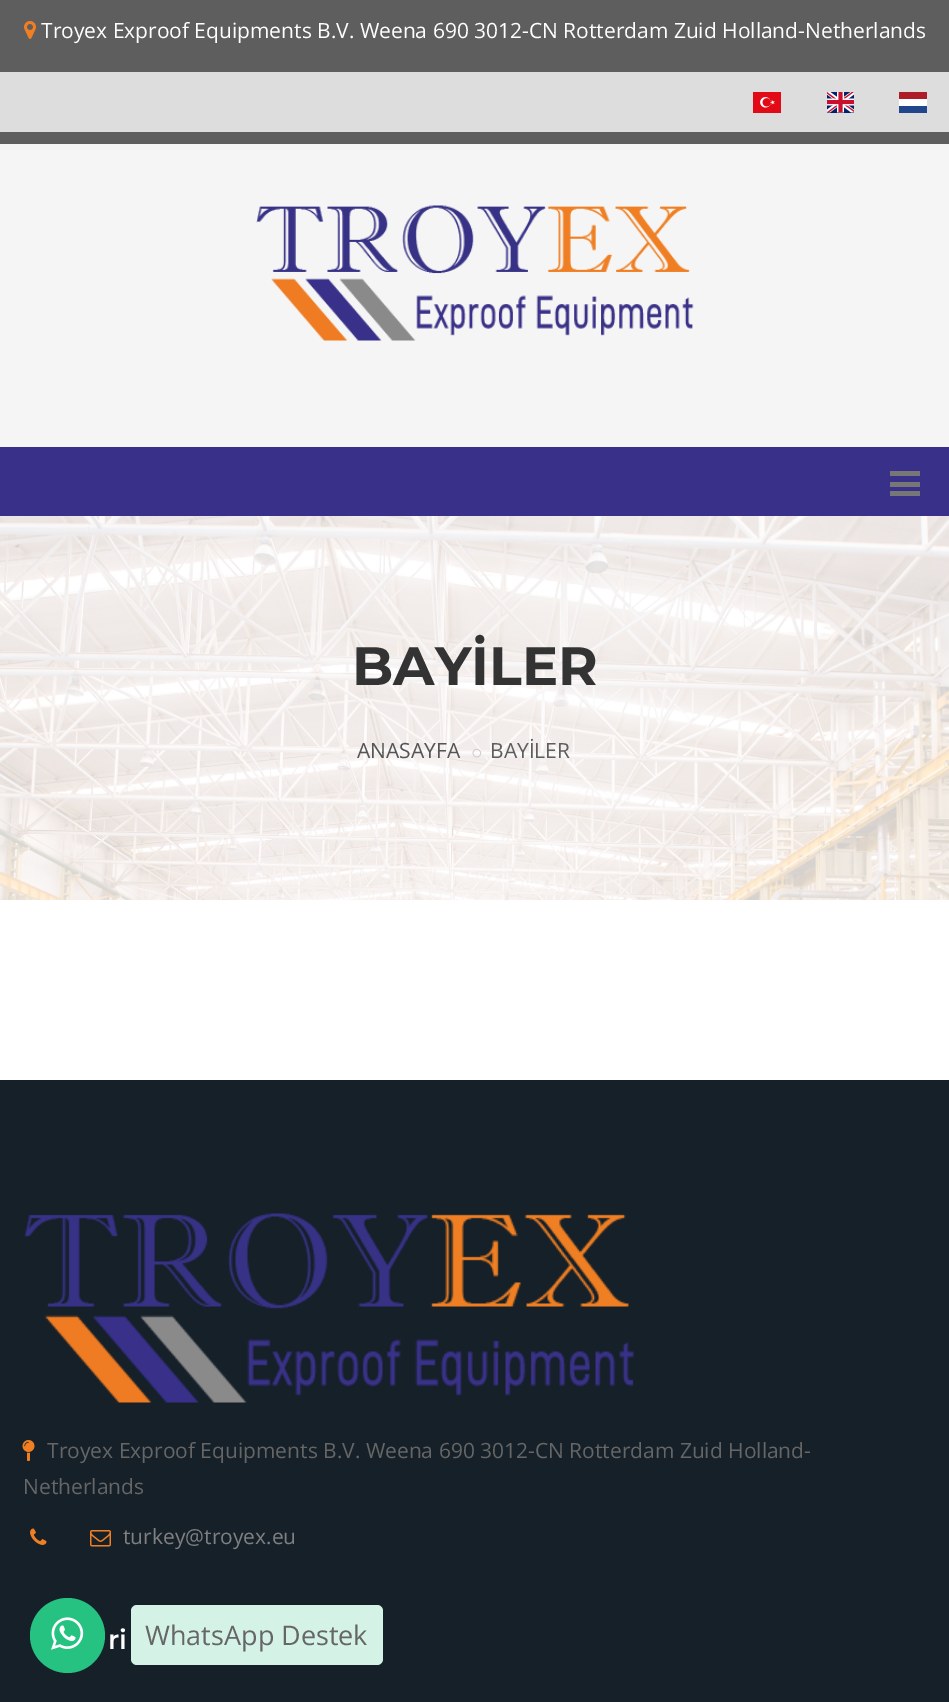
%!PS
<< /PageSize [949 1702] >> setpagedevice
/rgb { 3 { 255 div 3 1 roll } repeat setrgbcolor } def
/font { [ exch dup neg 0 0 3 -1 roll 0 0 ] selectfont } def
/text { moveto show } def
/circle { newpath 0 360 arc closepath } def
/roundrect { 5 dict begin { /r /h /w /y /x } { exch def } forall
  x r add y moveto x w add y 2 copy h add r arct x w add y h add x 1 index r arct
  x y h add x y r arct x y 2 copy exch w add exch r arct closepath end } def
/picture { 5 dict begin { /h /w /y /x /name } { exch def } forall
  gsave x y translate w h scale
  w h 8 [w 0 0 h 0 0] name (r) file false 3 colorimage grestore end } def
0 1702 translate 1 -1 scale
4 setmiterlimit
255 255 255 rgb
0 0 949 1702 rectfill
94 94 94 rgb
0 0 949 144 rectfill
(img_01.rgb) 24 21 12 18 picture
221 221 221 rgb
0 72 949 60 rectfill
(img_02.rgb) 753 92 28 21 picture
(img_03.rgb) 827 92 27 21 picture
33 70 139 rgb
899 106 28 7 rectfill
255 255 255 rgb
899 99 28 7 rectfill
174 28 40 rgb
899 92 28 7 rectfill
245 245 245 rgb
0 144 949 303 rectfill
(img_04.rgb) 256 205 438 136 picture
56 48 137 rgb
0 447 949 69 rectfill
119 119 119 rgb
890 471 30 5 rectfill
890 482 30 5 rectfill
890 491 30 5 rectfill
(img_05.rgb) 0 516 949 384 picture
(img_06.rgb) 472 748 10 10 picture
21 32 41 rgb
0 1080 949 622 rectfill
(img_07.rgb) 24 1213 611 190 picture
(img_08.rgb) 22 1440 13 21 picture
(img_09.rgb) 30 1528 17 17 picture
(img_10.rgb) 90 1530 21 17 picture
38 194 129 rgb
67.5 1635.5 37.5 circle fill
(img_11.rgb) 51 1617 33 33 picture
212 243 230 rgb
131 1605 252 60 6 roundrect fill
/OpenSans-Regular 21 font
255 255 255 rgb
(Troyex Exproof Equipments B.V. Weena 690 3012-CN Rotterdam Zuid Holland-Netherlands) 41 38 text
/Montserrat-Bold 54 font
51 51 51 rgb
(BAYİLER) 352 685 text
/OpenSans-Regular 21 font
85 85 85 rgb
(ANASAYFA) 357 758 text
94 94 94 rgb
(BAYİLER) 490 758 text
102 102 102 rgb
(Troyex Exproof Equipments B.V. Weena 690 3012-CN Rotterdam Zuid Holland-) 47 1458 text
(Netherlands) 23 1494 text
128 128 128 rgb
(turkey@troyex.eu) 123 1544 text
/Montserrat-SemiBold 27 font
255 255 255 rgb
(ri) 108 1649 text
/OpenSans-Regular 27 font
102 102 102 rgb
(WhatsApp Destek) 145 1645 text
showpage
